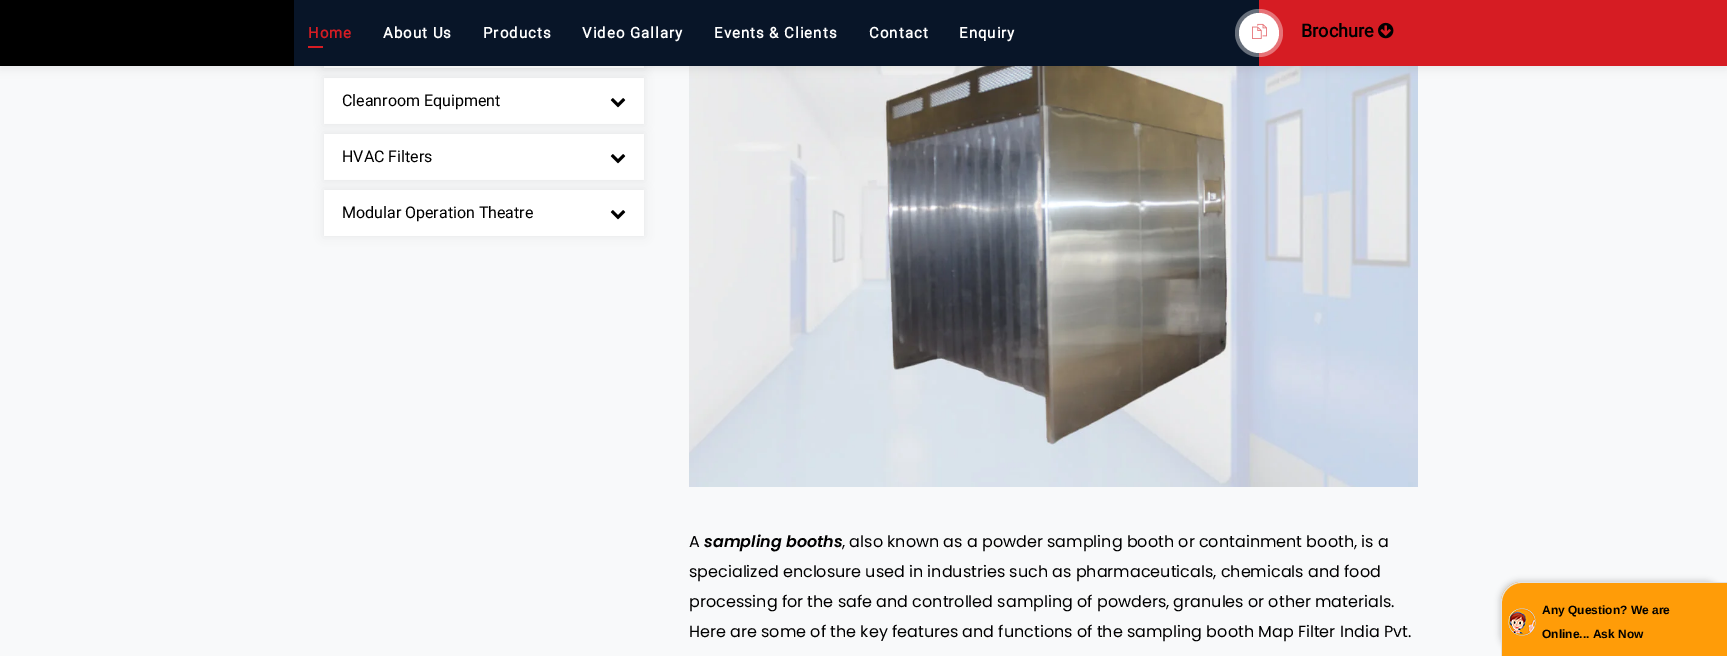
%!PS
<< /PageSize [1727 656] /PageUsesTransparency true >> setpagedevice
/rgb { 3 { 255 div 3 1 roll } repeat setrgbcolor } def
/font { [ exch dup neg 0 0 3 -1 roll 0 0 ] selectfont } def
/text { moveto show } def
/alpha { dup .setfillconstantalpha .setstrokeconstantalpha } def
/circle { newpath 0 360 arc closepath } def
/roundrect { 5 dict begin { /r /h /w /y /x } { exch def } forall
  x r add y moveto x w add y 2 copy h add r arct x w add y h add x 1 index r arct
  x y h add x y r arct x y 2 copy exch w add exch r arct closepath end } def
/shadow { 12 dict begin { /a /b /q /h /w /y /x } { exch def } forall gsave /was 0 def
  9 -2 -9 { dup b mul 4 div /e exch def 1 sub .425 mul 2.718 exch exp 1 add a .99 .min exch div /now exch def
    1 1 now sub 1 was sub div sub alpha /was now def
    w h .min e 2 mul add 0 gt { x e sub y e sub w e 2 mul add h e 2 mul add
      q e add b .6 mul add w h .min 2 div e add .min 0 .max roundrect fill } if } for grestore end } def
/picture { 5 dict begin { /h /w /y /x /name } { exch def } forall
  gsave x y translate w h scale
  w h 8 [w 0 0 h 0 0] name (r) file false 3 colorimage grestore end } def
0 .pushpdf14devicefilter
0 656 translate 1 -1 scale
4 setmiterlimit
248 249 250 rgb
0 0 1727 656 rectfill
0 0 0 rgb
324 22 320 46 0 5 0.07 shadow
255 255 255 rgb
324 66 320 2 rectfill
0 0 0 rgb
324 78 320 46 0 5 0.07 shadow
255 255 255 rgb
324 78 320 46 rectfill
(img_04.rgb) 689 66 729 421 picture
0 0 0 rgb
0 4 1727 66 0 5 0.06 shadow
8 21 40 rgb
294 0 965 66 rectfill
0 0 0 rgb
0 0 294 66 rectfill
214 28 35 rgb
308 46 15 2 rectfill
1259 0 468 66 rectfill
255 255 255 rgb
1259 33 20 circle fill
(img_01.rgb) 1252 23 15 16 picture
0.38 alpha
1259 33 24 circle fill
1 alpha
(img_02.rgb) 1378 22 16 17 picture
(img_03.rgb) 610 98 16 10 picture
0 0 0 rgb
324 134 320 46 0 5 0.07 shadow
255 255 255 rgb
324 134 320 46 rectfill
(img_03.rgb) 610 154 16 10 picture
0 0 0 rgb
324 190 320 46 0 5 0.07 shadow
255 255 255 rgb
324 190 320 46 rectfill
(img_03.rgb) 610 210 16 10 picture
50 50 50 rgb
1499 580 226 74 20 2.5 0.17 shadow
255 156 8 rgb
1521 582 moveto 206 0 rlineto 0 74 rlineto -226 0 rlineto 0 -54 rlineto 0 -11 9 -20 20 -20 rcurveto closepath fill
227 227 227 rgb
1521 582 moveto 206 0 rlineto 0 74 rlineto -226 0 rlineto 0 -54 rlineto 0 -11 9 -20 20 -20 rcurveto closepath 1521 583 moveto 206 0 rlineto 0 73 rlineto -225 0 rlineto 0 -54 rlineto 0 -10 9 -19 19 -19 rcurveto closepath eofill
(img_05.rgb) 1508 608 28 28 picture
/Roboto-Bold 15 font
214 28 35 rgb
308 38 moveto 1 0 (Home) ashow
255 255 255 rgb
383 38 moveto 1 0 (About Us) ashow
483 38 moveto 1 0 (Products) ashow
582 38 moveto 1 0 (Video Gallary) ashow
714 38 moveto 1 0 (Events & Clients) ashow
869 38 moveto 1 0 (Contact) ashow
959 38 moveto 1 0 (Enquiry) ashow
/Roboto-Bold 18 font
0 0 0 rgb
(Brochure) 1301 37 text
/Roboto-Regular 16 font
(Cleanroom Equipment) 342 106 text
(HVAC Filters) 342 162 text
(Modular Operation Theatre) 342 218 text
/Poppins-Regular 16 font
(A) 689 547 text
/Poppins-SemiBoldItalic 16 font
(sampling booths) 704 547 text
/Poppins-Regular 16 font
(, also known as a powder sampling booth or containment booth, is a) 842 547 text
(specialized enclosure used in industries such as pharmaceuticals, chemicals and food) 689 577 text
(processing for the safe and controlled sampling of powders, granules or other materials.) 689 607 text
(Here are some of the key features and functions of the sampling booth Map Filter India Pvt.) 689 637 text
/LiberationSans-Bold 12 font
(Any Question? We are) 1542 614 text
(Online... Ask Now) 1542 638 text
.poppdf14devicefilter showpage
